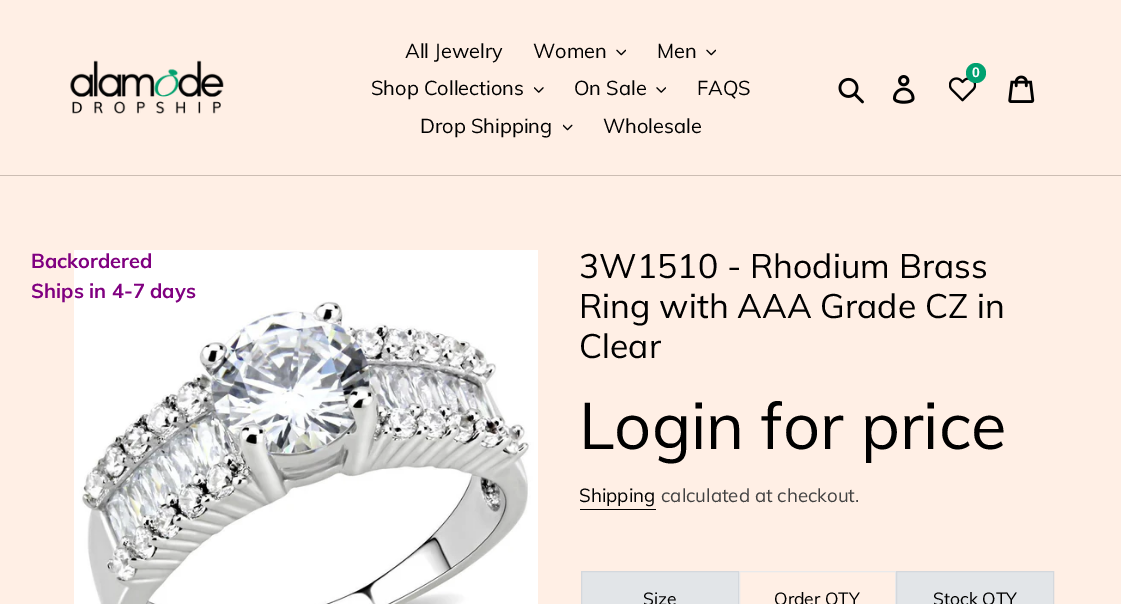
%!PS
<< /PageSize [1121 604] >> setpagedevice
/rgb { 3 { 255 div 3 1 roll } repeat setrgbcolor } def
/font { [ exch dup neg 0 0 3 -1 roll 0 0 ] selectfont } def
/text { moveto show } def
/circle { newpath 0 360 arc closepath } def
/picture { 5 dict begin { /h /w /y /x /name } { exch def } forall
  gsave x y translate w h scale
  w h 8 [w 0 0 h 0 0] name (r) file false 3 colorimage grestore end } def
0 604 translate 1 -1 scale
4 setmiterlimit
255 239 229 rgb
0 0 1121 604 rectfill
204 189 179 rgb
0 175 1121 1 rectfill
(img_01.rgb) 70 60 154 54 picture
(img_02.rgb) 616 49 10 7 picture
(img_02.rgb) 706 49 10 7 picture
(img_03.rgb) 534 87 10 6 picture
(img_04.rgb) 656 87 10 6 picture
(img_05.rgb) 563 124 10 7 picture
(img_06.rgb) 949 77 27 25 picture
0 161 112 rgb
976 73 10 circle fill
(img_07.rgb) 838 77 26 27 picture
(img_08.rgb) 892 75 23 29 picture
(img_09.rgb) 1008 75 27 28 picture
(img_10.rgb) 74 250 464 354 picture
0 0 0 rgb
580 509 76 1 rectfill
226 229 232 rgb
581.5 571.5 moveto 157 0 rlineto 0 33 rlineto -157 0 rlineto closepath gsave fill grestore
212 216 221 rgb
stroke
232 233 235 rgb
739.5 571.5 156 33 rectstroke
226 229 232 rgb
896.5 571.5 moveto 157 0 rlineto 0 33 rlineto -157 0 rlineto closepath gsave fill grestore
212 216 221 rgb
stroke
/Muli-Regular 20 font
0 0 0 rgb
(All Jewelry) 405 58 text
(Women) 533 58 text
(Men) 657 58 text
(Shop Collections) 371 95 text
(On Sale) 574 95 text
(FAQS) 697 95 text
(Drop Shipping) 420 133 text
(Wholesale) 603 133 text
/LiberationSans-Bold 14 font
255 255 255 rgb
(0) 972 77 text
/Muli-Bold 20 font
128 0 128 rgb
(Backordered) 31 268 text
(Ships in 4-7 days) 31 298 text
/Muli-Regular 33.75 font
0 0 0 rgb
(3W1510 - Rhodium Brass) 579 278 text
(Ring with AAA Grade CZ in) 579 318 text
(Clear) 579 358 text
/Muli-Regular 65 font
(Login for price) 579 449 text
/Muli-Regular 18.75 font
(Shipping) 579 502 text
66 66 66 rgb
(calculated at checkout.) 661 502 text
/Muli-Regular 17.5 font
0 0 0 rgb
(Size) 643 605 text
(Order QTY) 774 605 text
(Stock QTY) 933 605 text
showpage
